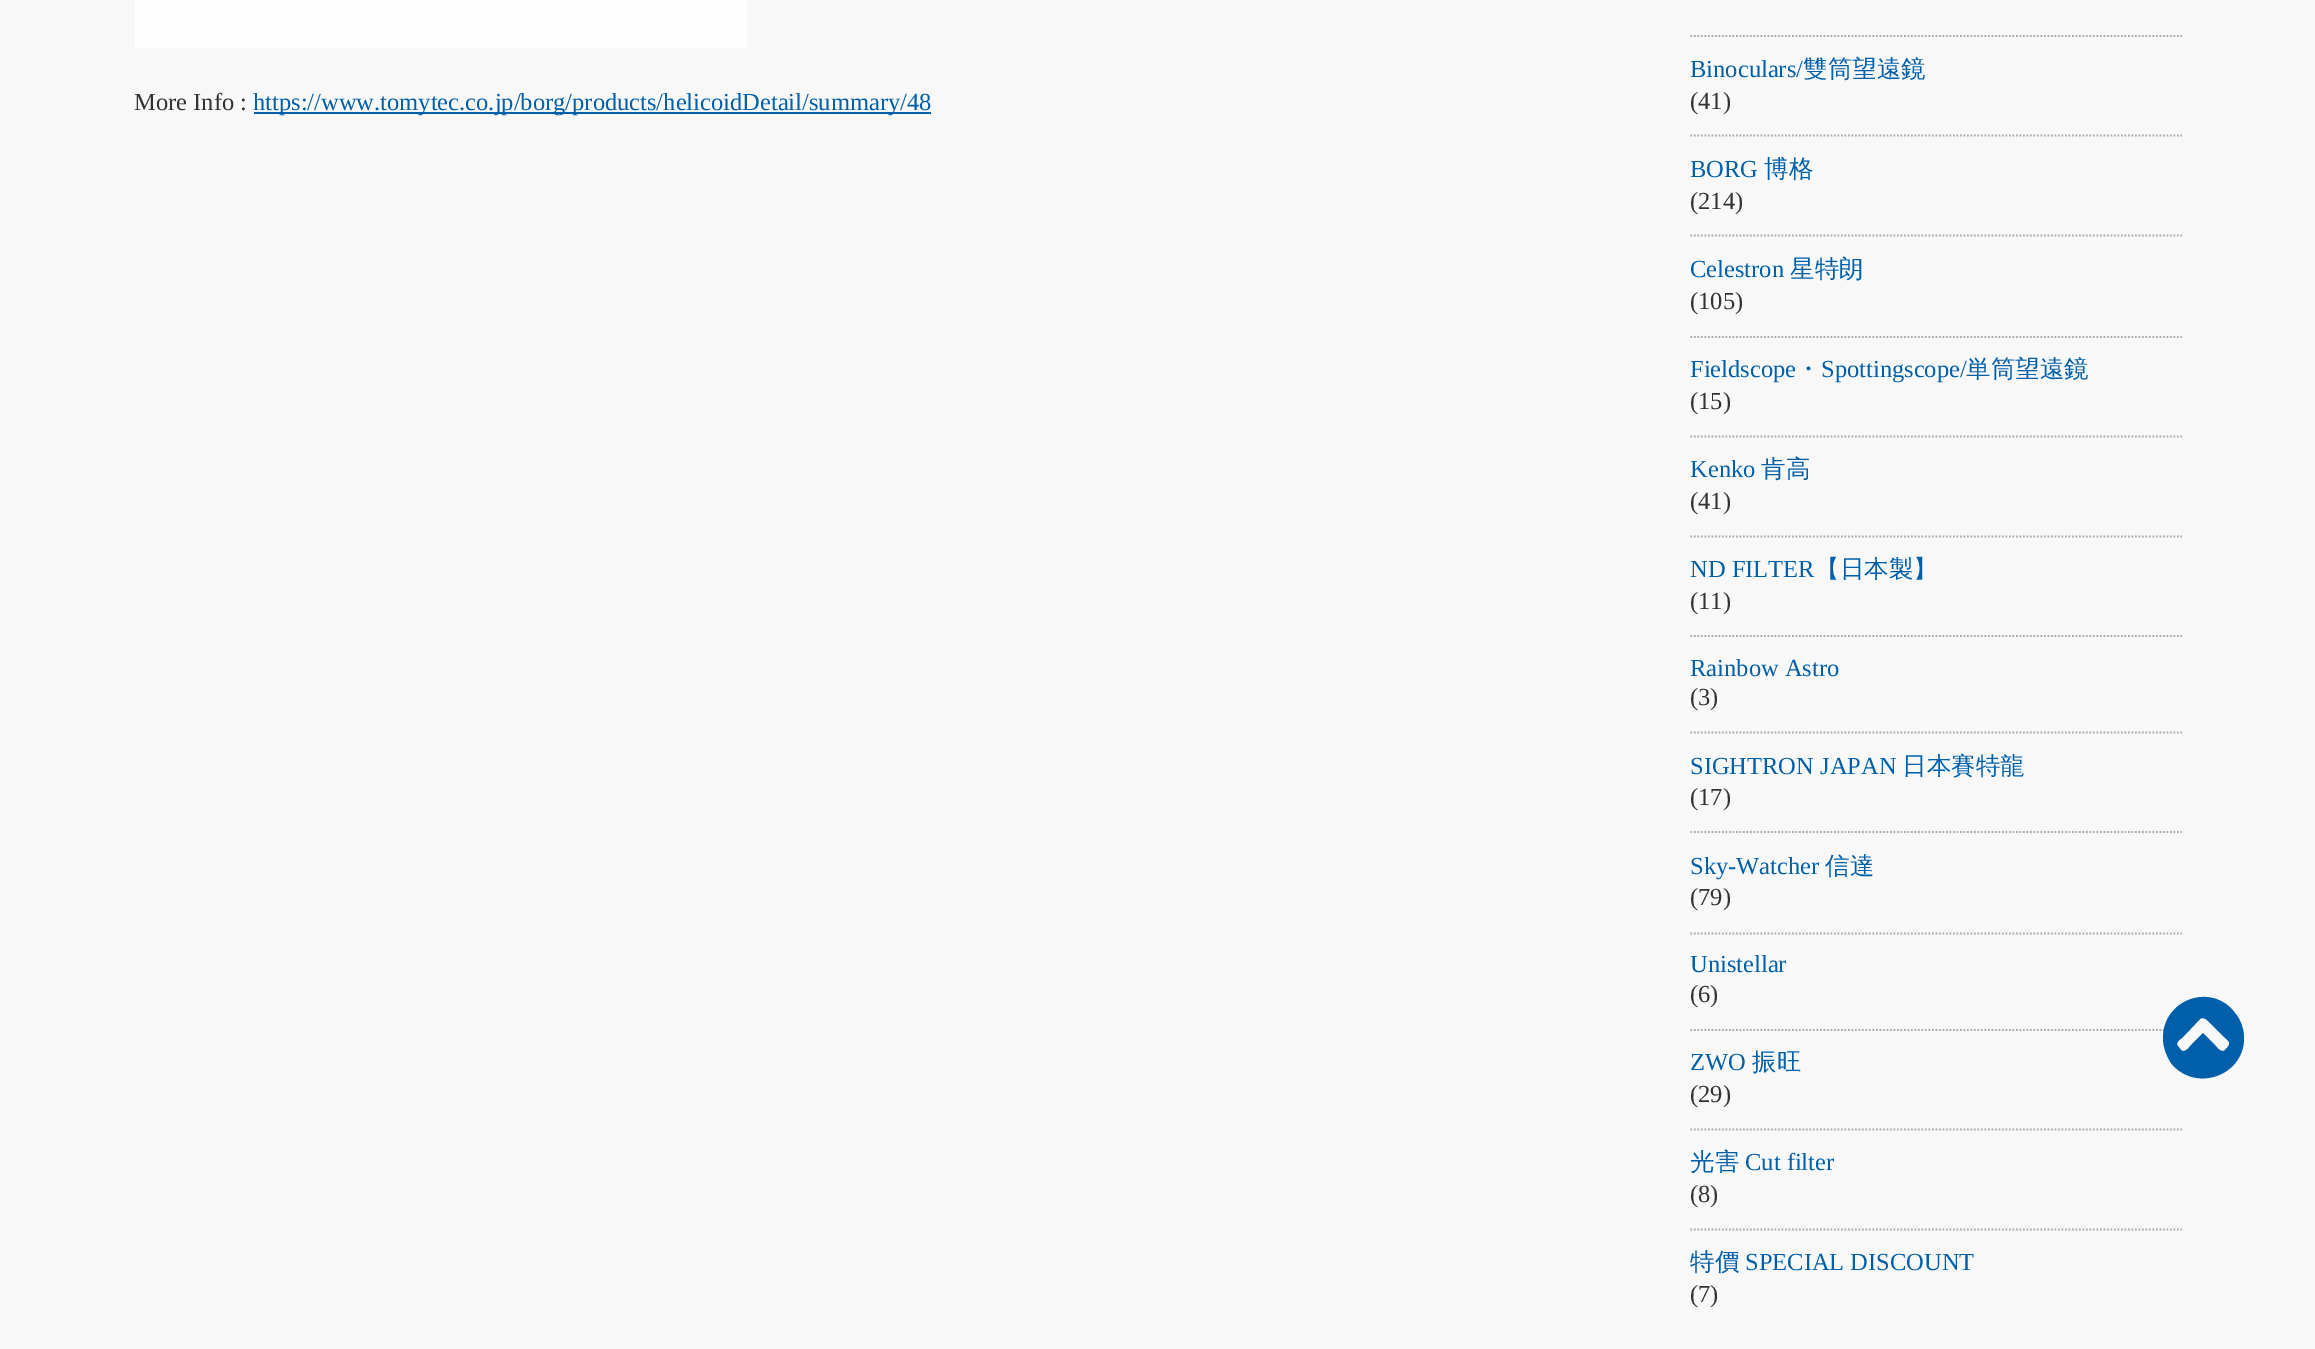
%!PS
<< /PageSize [2315 1349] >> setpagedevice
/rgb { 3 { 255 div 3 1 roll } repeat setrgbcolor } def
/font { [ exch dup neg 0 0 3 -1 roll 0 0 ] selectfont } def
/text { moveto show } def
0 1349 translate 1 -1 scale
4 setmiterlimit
248 248 248 rgb
0 0 2315 1349 rectfill
254 254 254 rgb
135 0 612 48 rectfill
0 95 171 rgb
254 112 677 2 rectfill
170 170 170 rgb
1.8 setlinewidth
[1.75 1.75] 0 setdash
1690.5 36 moveto 491.5 0 rlineto stroke
1690.5 135.5 moveto 491.5 0 rlineto stroke
1690.5 235.5 moveto 491.5 0 rlineto stroke
1690.5 337 moveto 491.5 0 rlineto stroke
1690.5 436.5 moveto 491.5 0 rlineto stroke
1690.5 536.5 moveto 491.5 0 rlineto stroke
1690.5 636 moveto 491.5 0 rlineto stroke
1690.5 732.5 moveto 491.5 0 rlineto stroke
1690.5 832 moveto 491.5 0 rlineto stroke
1690.5 933.5 moveto 491.5 0 rlineto stroke
1690.5 1030 moveto 491.5 0 rlineto stroke
1690.5 1129.5 moveto 491.5 0 rlineto stroke
1690.5 1229.5 moveto 491.5 0 rlineto stroke
0 95 171 rgb
2163 1038 moveto 0 -39 49 -56 72 -25 rcurveto 6 7 9 16 9 25 rcurveto 0 38 -49 55 -73 25 rcurveto -5 -8 -8 -16 -8 -25 rcurveto closepath 2200 1019 moveto -18 19 rlineto -2 1 -7 5 -4 8 rcurveto 3 4 rlineto 4 4 9 -4 11 -6 rcurveto 11 -11 rlineto 11 11 rlineto 2 2 7 10 11 6 rcurveto 8 -8 4 -8 -4 -16 rcurveto -11 -11 rlineto -2 -2 -6 -7 -10 -4 rcurveto closepath fill
/LiberationSerif-Regular 24.5 font
50 50 50 rgb
(More Info :) 134 110 text
0 95 171 rgb
(https://www.tomytec.co.jp/borg/products/helicoidDetail/summary/48) 253 110 text
(Binoculars/) 1690 77 text
/WenQuanYiZenHei-Medium 24.5 font
(雙筒望遠鏡) 1803 77 text
/LiberationSerif-Regular 24.5 font
50 50 50 rgb
(\(41\)) 1690 109 text
0 95 171 rgb
(BORG) 1690 177 text
/WenQuanYiZenHei-Medium 24.5 font
(博格) 1764 177 text
/LiberationSerif-Regular 24.5 font
50 50 50 rgb
(\(214\)) 1690 209 text
0 95 171 rgb
(Celestron) 1690 277 text
/WenQuanYiZenHei-Medium 24.5 font
(星特朗) 1790 277 text
/LiberationSerif-Regular 24.5 font
50 50 50 rgb
(\(105\)) 1690 309 text
0 95 171 rgb
(Fieldscope) 1690 377 text
/WenQuanYiZenHei-Medium 24.5 font
(・) 1796 377 text
/LiberationSerif-Regular 24.5 font
(Spottingscope/) 1821 377 text
/WenQuanYiZenHei-Medium 24.5 font
(単筒望遠鏡) 1966 377 text
/LiberationSerif-Regular 24.5 font
50 50 50 rgb
(\(15\)) 1690 409 text
0 95 171 rgb
(Kenko) 1690 477 text
/WenQuanYiZenHei-Medium 24.5 font
(肯高) 1761 477 text
/LiberationSerif-Regular 24.5 font
50 50 50 rgb
(\(41\)) 1690 509 text
0 95 171 rgb
(ND FILTER) 1690 577 text
/WenQuanYiZenHei-Medium 24.5 font
(【日本製】) 1815 577 text
/LiberationSerif-Regular 24.5 font
50 50 50 rgb
(\(11\)) 1690 609 text
0 95 171 rgb
(Rainbow Astro) 1690 676 text
50 50 50 rgb
(\(3\)) 1690 705 text
0 95 171 rgb
(SIGHTRON JAPAN) 1690 774 text
/WenQuanYiZenHei-Medium 24.5 font
(日本賽特龍) 1902 774 text
/LiberationSerif-Regular 24.5 font
50 50 50 rgb
(\(17\)) 1690 805 text
0 95 171 rgb
(Sky-Watcher) 1690 874 text
/WenQuanYiZenHei-Medium 24.5 font
(信達) 1825 874 text
/LiberationSerif-Regular 24.5 font
50 50 50 rgb
(\(79\)) 1690 905 text
0 95 171 rgb
(Unistellar) 1690 972 text
50 50 50 rgb
(\(6\)) 1690 1002 text
0 95 171 rgb
(ZWO) 1690 1070 text
/WenQuanYiZenHei-Medium 24.5 font
(振旺) 1752 1070 text
/LiberationSerif-Regular 24.5 font
50 50 50 rgb
(\(29\)) 1690 1102 text
/WenQuanYiZenHei-Medium 24.5 font
0 95 171 rgb
(光害) 1690 1170 text
/LiberationSerif-Regular 24.5 font
(Cut filter) 1745 1170 text
50 50 50 rgb
(\(8\)) 1690 1202 text
/WenQuanYiZenHei-Medium 24.5 font
0 95 171 rgb
(特價) 1690 1270 text
/LiberationSerif-Regular 24.5 font
(SPECIAL DISCOUNT) 1745 1270 text
50 50 50 rgb
(\(7\)) 1690 1302 text
showpage
